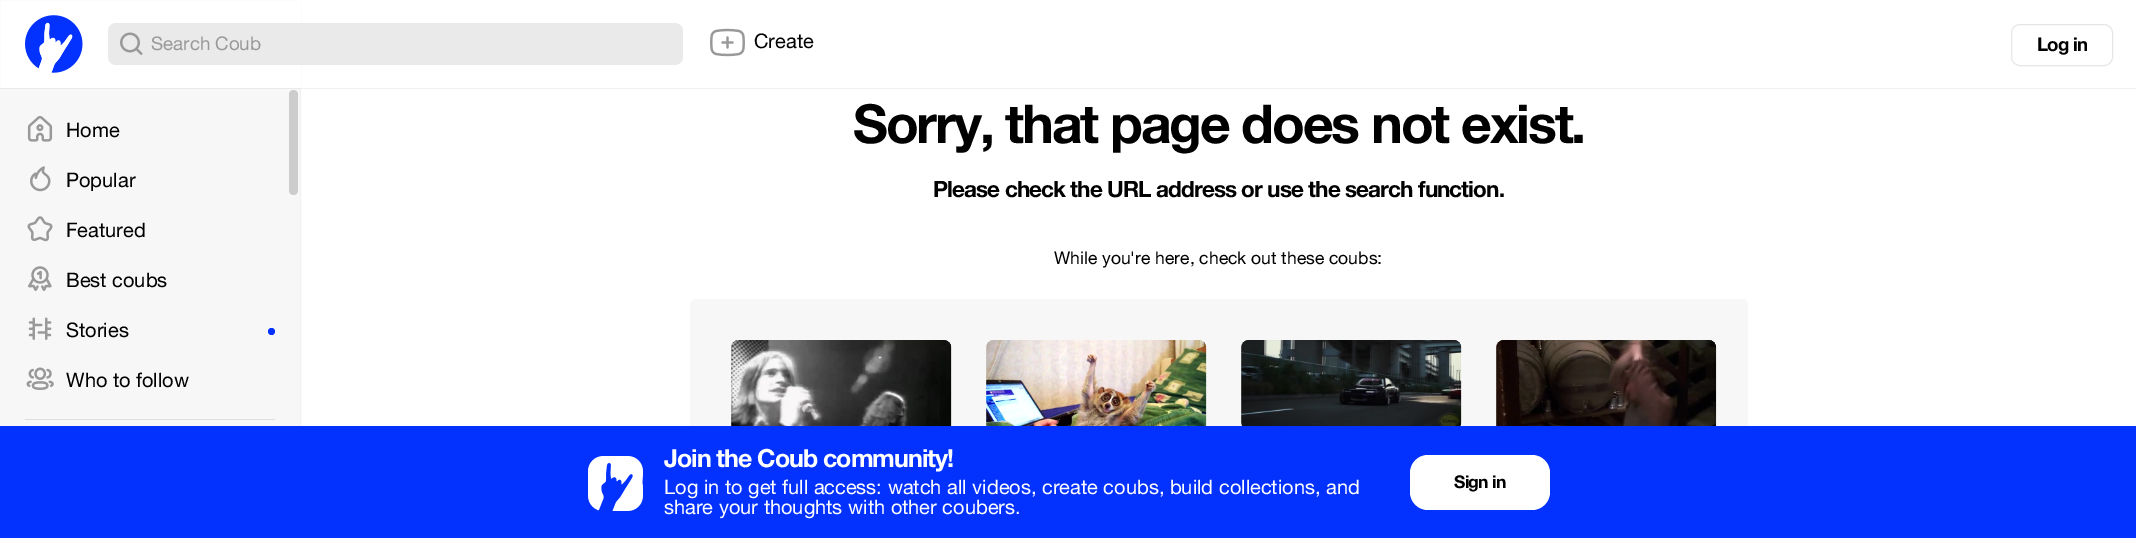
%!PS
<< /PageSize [2136 538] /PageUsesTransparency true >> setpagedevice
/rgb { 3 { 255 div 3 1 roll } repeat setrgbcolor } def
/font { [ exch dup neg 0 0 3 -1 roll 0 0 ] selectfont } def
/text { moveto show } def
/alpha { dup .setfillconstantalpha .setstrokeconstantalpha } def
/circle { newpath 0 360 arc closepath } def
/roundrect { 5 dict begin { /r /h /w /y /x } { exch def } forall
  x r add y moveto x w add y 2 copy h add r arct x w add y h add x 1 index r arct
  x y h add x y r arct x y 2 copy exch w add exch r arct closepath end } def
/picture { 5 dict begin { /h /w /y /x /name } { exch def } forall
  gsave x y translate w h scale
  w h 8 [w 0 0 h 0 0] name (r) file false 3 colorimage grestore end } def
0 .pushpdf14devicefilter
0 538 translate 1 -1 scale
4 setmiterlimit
255 255 255 rgb
0 0 2136 538 rectfill
242 242 242 rgb
-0.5 -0.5 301 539 rectstroke
247 247 247 rgb
0 88 300 338 rectfill
0.05 alpha
0 0 0 rgb
0 88 2136 1 rectfill
1 alpha
255 255 255 rgb
300 0 1 88 rectfill
(img_01.rgb) 25 15 58 58 picture
234 234 234 rgb
108 23 575 42 8 roundrect fill
(img_02.rgb) 120 32 23 23 picture
(img_03.rgb) 710 28 35 29 picture
230 230 230 rgb
2011.5 24.5 101 41 8.5 roundrect stroke
(img_04.rgb) 27 116 26 26 picture
(img_05.rgb) 30 166 21 26 picture
(img_06.rgb) 27 216 26 26 picture
(img_07.rgb) 28 266 24 25 picture
(img_08.rgb) 28 317 24 23 picture
3 50 255 rgb
271.5 331.5 3.5 circle fill
(img_09.rgb) 26 367 28 23 picture
222 222 222 rgb
25 419 250 1 rectfill
204 204 204 rgb
289 90 9 105 4.5 roundrect fill
247 247 247 rgb
690 299 1058 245 6 roundrect fill
(img_10.rgb) 731 340 221 86 picture
(img_11.rgb) 731 340 221 86 picture
(img_12.rgb) 986 340 221 86 picture
(img_13.rgb) 986 340 221 86 picture
(img_14.rgb) 1241 340 221 86 picture
(img_15.rgb) 1241 340 221 86 picture
(img_16.rgb) 1496 340 221 86 picture
(img_17.rgb) 1496 340 219 86 picture
3 50 255 rgb
0 426 2136 112 rectfill
(img_18.rgb) 588 456 55 55 picture
255 255 255 rgb
1410 455 140 55 18 roundrect fill
/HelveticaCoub-Regular 18.75 font
153 153 153 rgb
(Search Coub) 151 50 text
/HelveticaCoub-Regular 20 font
0 0 0 rgb
(Create) 754 48 text
/HelveticaCoub-Bold 18.75 font
2037 51 moveto -0.75 0 (Log in) ashow
/HelveticaCoub-Regular 20 font
(Home) 66 137 text
(Popular) 66 187 text
(Featured) 66 237 text
(Best coubs) 66 287 text
(Stories) 66 337 text
(Who to follow) 66 387 text
/HelveticaCoub-Bold 53.75 font
853 143 moveto -2.15 0 (Sorry, that page does not exist.) ashow
/HelveticaCoub-Bold 22.5 font
933 197 moveto -0.9 0 (Please check the URL address or use the search function.) ashow
/HelveticaCoub-Regular 17.5 font
(While you're here, check out these coubs:) 1054 264 text
/HelveticaCoub-Bold 25 font
255 255 255 rgb
664 467 moveto -1 0 (Join the Coub community!) ashow
/HelveticaCoub-Regular 20 font
(Log in to get full access: watch all videos, create coubs, build collections, and) 664 494 text
(share your thoughts with other coubers.) 664 514 text
/HelveticaCoub-Bold 17.5 font
0 0 0 rgb
1454 488 moveto -0.75 0 (Sign in) ashow
.poppdf14devicefilter showpage
